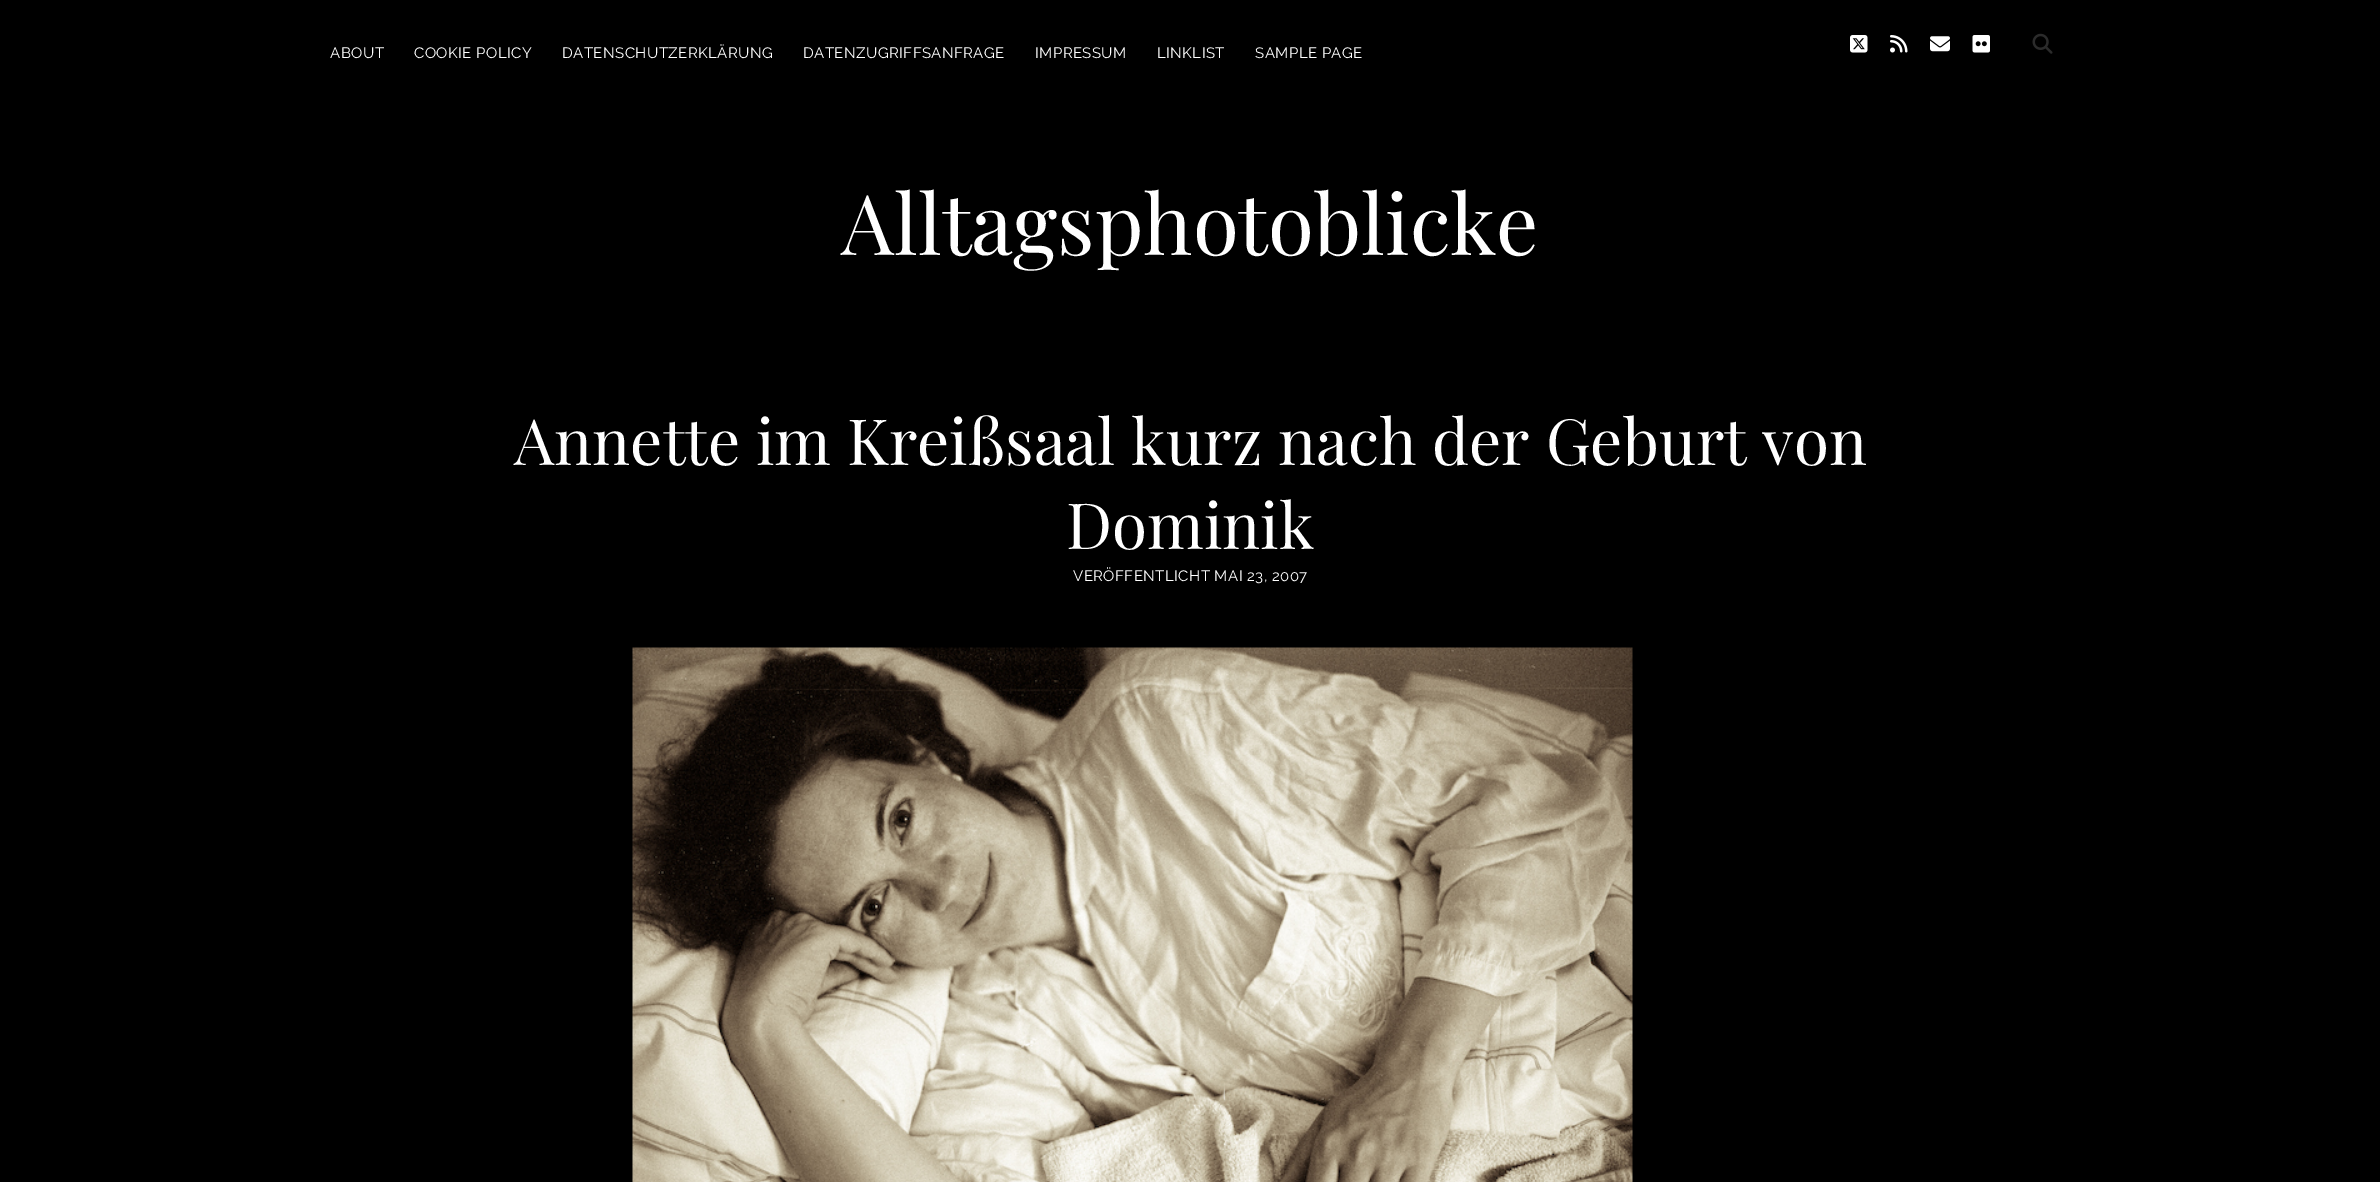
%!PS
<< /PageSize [2380 1182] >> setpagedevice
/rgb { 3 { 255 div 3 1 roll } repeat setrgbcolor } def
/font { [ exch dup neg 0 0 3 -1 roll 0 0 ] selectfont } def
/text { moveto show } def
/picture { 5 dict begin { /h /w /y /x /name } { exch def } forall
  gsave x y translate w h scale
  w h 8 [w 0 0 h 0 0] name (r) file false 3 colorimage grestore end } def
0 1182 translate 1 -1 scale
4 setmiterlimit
0 0 0 rgb
0 0 2380 1182 rectfill
(img_01.rgb) 1850 35 18 18 picture
(img_02.rgb) 1890 35 18 18 picture
(img_03.rgb) 1930 36 20 16 picture
(img_04.rgb) 1972 35 18 18 picture
(img_05.rgb) 2032 33 21 21 picture
(img_06.rgb) 632 647 1001 535 picture
/Raleway-Regular 15 font
255 255 255 rgb
330 58 moveto 0.45 0 (ABOUT) ashow
414 58 moveto 0.45 0 (COOKIE POLICY) ashow
562 58 moveto 0.45 0 (DATENSCHUTZERKLÄRUNG) ashow
803 58 moveto 0.45 0 (DATENZUGRIFFSANFRAGE) ashow
1035 58 moveto 0.45 0 (IMPRESSUM) ashow
1157 58 moveto 0.45 0 (LINKLIST) ashow
1255 58 moveto 0.45 0 (SAMPLE PAGE) ashow
/PlayfairDisplay-Regular 83.75 font
(Alltagsphotoblicke) 841 255 text
/PlayfairDisplay-Regular 63.75 font
(Annette im Kreißsaal kurz nach der Geburt von) 514 465 text
(Dominik) 1066 549 text
/Raleway-Regular 15 font
1073 581 moveto 0.45 0 (VERÖFFENTLICHT MAI 23, 2007) ashow
showpage
